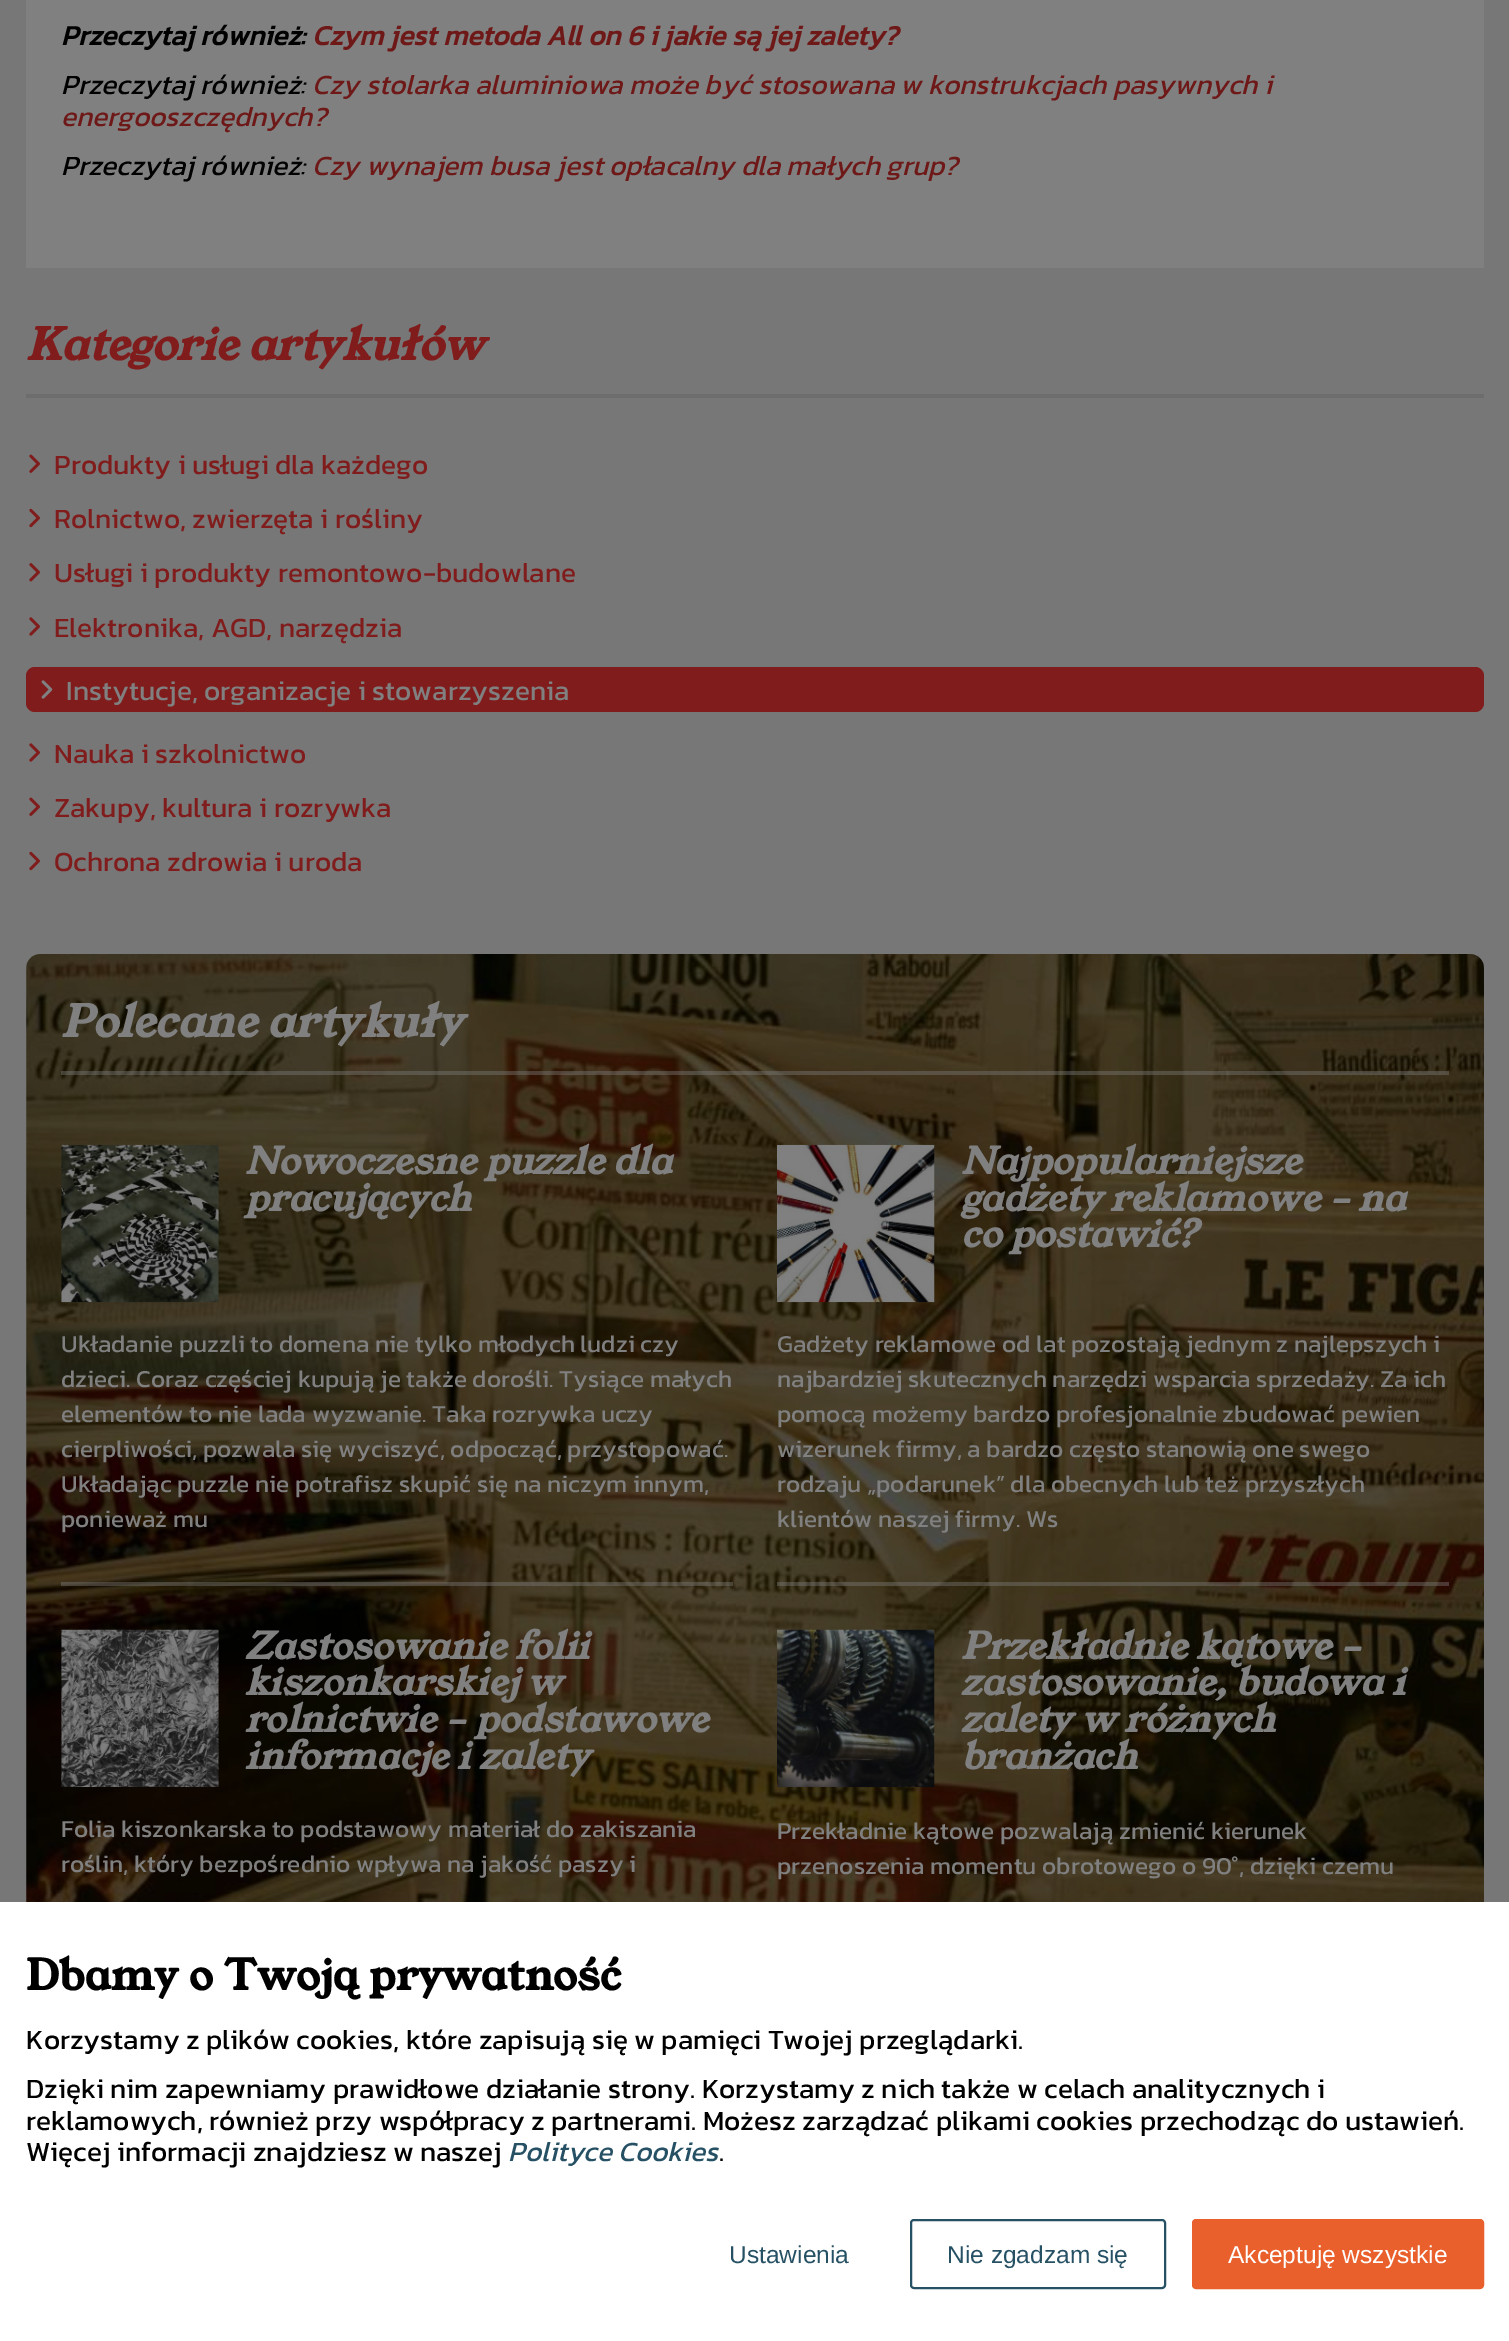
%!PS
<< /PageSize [1509 2341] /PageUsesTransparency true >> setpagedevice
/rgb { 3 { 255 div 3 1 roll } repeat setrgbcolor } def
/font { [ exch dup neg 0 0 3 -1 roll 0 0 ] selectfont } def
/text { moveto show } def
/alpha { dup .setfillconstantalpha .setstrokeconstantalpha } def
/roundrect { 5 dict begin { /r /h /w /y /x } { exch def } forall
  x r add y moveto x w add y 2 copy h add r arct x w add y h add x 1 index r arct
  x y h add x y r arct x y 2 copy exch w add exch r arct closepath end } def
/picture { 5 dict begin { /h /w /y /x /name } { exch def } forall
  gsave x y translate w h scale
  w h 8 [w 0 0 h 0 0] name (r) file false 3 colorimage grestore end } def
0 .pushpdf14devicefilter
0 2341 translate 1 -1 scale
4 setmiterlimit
119 119 119 rgb
0 0 1509 2341 rectfill
128 128 128 rgb
26 0 1458 268 rectfill
109 109 109 rgb
26 394 1458 4 rectfill
(img_01.rgb) 29 454 11 19 picture
(img_02.rgb) 29 508 11 20 picture
(img_03.rgb) 29 563 11 19 picture
(img_04.rgb) 29 617 11 19 picture
128 28 28 rgb
26 667 1458 45 9 roundrect fill
(img_05.rgb) 41 680 12 19 picture
(img_04.rgb) 29 743 11 19 picture
(img_01.rgb) 29 797 11 19 picture
(img_02.rgb) 29 851 11 20 picture
(img_06.rgb) 26 954 1458 948 picture
0.4 alpha
128 128 128 rgb
61 1071 1388 4 rectfill
61 1582 672 4 rectfill
1 alpha
(img_07.rgb) 61 1144 158 159 picture
0.4 alpha
777 1582 672 4 rectfill
1 alpha
(img_08.rgb) 777 1144 158 159 picture
(img_09.rgb) 61 1629 158 158 picture
(img_10.rgb) 777 1629 158 158 picture
255 255 255 rgb
0 1902 1509 439 rectfill
38 81 101 rgb
2 setlinewidth
911 2220 254 68 3 roundrect stroke
233 96 45 rgb
1193 2220 290 68 3 roundrect gsave fill grestore
stroke
/Kanit-BoldItalic 28 font
0 0 0 rgb
(Przeczytaj również:) 61 45 text
110 24 24 rgb
(Czym jest metoda All on 6 i jakie są jej zalety?) 312 45 text
/Kanit-Italic 28 font
0 0 0 rgb
(Przeczytaj również:) 61 94 text
110 24 24 rgb
(Czy stolarka aluminiowa może być stosowana w konstrukcjach pasywnych i) 312 94 text
(energooszczędnych?) 61 126 text
0 0 0 rgb
(Przeczytaj również:) 61 175 text
110 24 24 rgb
(Czy wynajem busa jest opłacalny dla małych grup?) 312 175 text
/YoungSerif-BoldItalic 43.75 font
128 28 28 rgb
(Kategorie artykułów) 26 360 text
/Kanit-Regular 28 font
(Produkty i usługi dla każdego) 54 474 text
(Rolnictwo, zwierzęta i rośliny) 54 528 text
(Usługi i produkty remontowo-budowlane) 54 582 text
(Elektronika, AGD, narzędzia) 54 637 text
128 128 128 rgb
(Instytucje, organizacje i stowarzyszenia) 66 700 text
128 28 28 rgb
(Nauka i szkolnictwo) 54 763 text
(Zakupy, kultura i rozrywka) 54 817 text
(Ochrona zdrowia i uroda) 54 871 text
/YoungSerif-BoldItalic 43.75 font
128 128 128 rgb
(Polecane artykuły) 61 1037 text
/YoungSerif-BoldItalic 36.75 font
(Nowoczesne puzzle dla) 245 1174 text
(pracujących) 245 1211 text
/Kanit-Regular 24.5 font
(Układanie puzzli to domena nie tylko młodych ludzi czy) 61 1352 text
(dzieci. Coraz częściej kupują je także dorośli. Tysiące małych) 61 1387 text
(elementów to nie lada wyzwanie. Taka rozrywka uczy) 61 1422 text
(cierpliwości, pozwala się wyciszyć, odpocząć, przystopować.) 61 1457 text
(Układając puzzle nie potrafisz skupić się na niczym innym,) 61 1492 text
(ponieważ mu) 61 1527 text
/YoungSerif-BoldItalic 36.75 font
(Najpopularniejsze) 961 1174 text
(gadżety reklamowe – na) 961 1211 text
(co postawić?) 961 1247 text
/Kanit-Regular 24.5 font
(Gadżety reklamowe od lat pozostają jednym z najlepszych i) 777 1352 text
(najbardziej skutecznych narzędzi wsparcia sprzedaży. Za ich) 777 1387 text
(pomocą możemy bardzo profesjonalnie zbudować pewien) 777 1422 text
(wizerunek firmy, a bardzo często stanowią one swego) 777 1457 text
(rodzaju „podarunek” dla obecnych lub też przyszłych) 777 1492 text
(klientów naszej firmy. Ws) 777 1527 text
/YoungSerif-BoldItalic 36.75 font
(Zastosowanie folii) 245 1659 text
(kiszonkarskiej w) 245 1695 text
(rolnictwie – podstawowe) 245 1732 text
(informacje i zalety) 245 1769 text
/Kanit-Regular 24.5 font
(Folia kiszonkarska to podstawowy materiał do zakiszania) 61 1837 text
(roślin, który bezpośrednio wpływa na jakość paszy i) 61 1872 text
/YoungSerif-BoldItalic 36.75 font
(Przekładnie kątowe –) 961 1659 text
(zastosowanie, budowa i) 961 1695 text
(zalety w różnych) 961 1732 text
(branżach) 961 1769 text
/Kanit-Regular 24.5 font
(Przekładnie kątowe pozwalają zmienić kierunek) 777 1839 text
(przenoszenia momentu obrotowego o 90°, dzięki czemu) 777 1874 text
/YoungSerif-Bold 42 font
0 0 0 rgb
(Dbamy o Twoją prywatność) 26 1990 text
/Kanit-Regular 28 font
(Korzystamy z plików cookies, które zapisują się w pamięci Twojej przeglądarki.) 26 2049 text
(Dzięki nim zapewniamy prawidłowe działanie strony. Korzystamy z nich także w celach analitycznych i) 26 2098 text
(reklamowych, również przy współpracy z partnerami. Możesz zarządzać plikami cookies przechodząc do ustawień.) 26 2130 text
(Więcej informacji znajdziesz w naszej) 26 2161 text
/Kanit-Italic 28 font
38 81 101 rgb
(Polityce Cookies) 508 2161 text
/Kanit-Regular 28 font
0 0 0 rgb
(.) 719 2161 text
/LiberationSans-Regular 24.5 font
38 81 101 rgb
(Ustawienia) 729 2263 text
(Nie zgadzam się) 947 2263 text
255 255 255 rgb
(Akceptuję wszystkie) 1228 2263 text
.poppdf14devicefilter showpage
